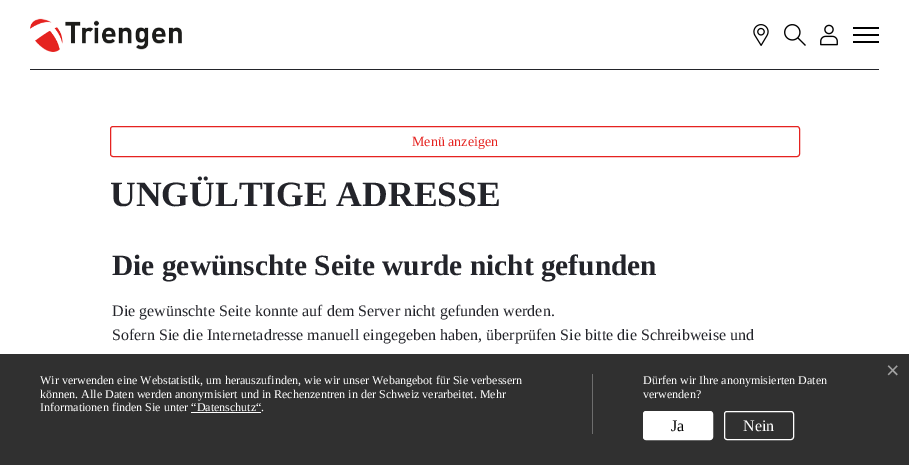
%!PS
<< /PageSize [909 465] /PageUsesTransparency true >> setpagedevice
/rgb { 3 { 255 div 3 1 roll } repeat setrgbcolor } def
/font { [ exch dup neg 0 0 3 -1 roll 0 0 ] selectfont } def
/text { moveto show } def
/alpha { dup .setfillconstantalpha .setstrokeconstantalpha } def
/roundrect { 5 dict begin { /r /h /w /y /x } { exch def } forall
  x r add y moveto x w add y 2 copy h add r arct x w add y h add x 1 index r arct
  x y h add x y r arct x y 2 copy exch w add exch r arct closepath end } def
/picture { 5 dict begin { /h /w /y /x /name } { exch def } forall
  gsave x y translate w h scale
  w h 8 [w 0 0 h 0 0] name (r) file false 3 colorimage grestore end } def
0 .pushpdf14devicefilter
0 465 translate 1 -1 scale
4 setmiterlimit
255 255 255 rgb
0 0 909 465 rectfill
(img_01.rgb) 30 18 152 34 picture
(img_02.rgb) 753 24 16 22 picture
(img_03.rgb) 784 24 22 22 picture
(img_04.rgb) 820 24 18 22 picture
0 0 0 rgb
853 27 26 2 rectfill
853 34 26 2 rectfill
853 41 26 2 rectfill
35 36 42 rgb
30 69 849 1 rectfill
229 35 32 rgb
110.5 126.5 689 30 2.5 roundrect stroke
0.9 alpha
25 25 25 rgb
0 354 909 111 rectfill
1 alpha
109 109 109 rgb
592 374 1 60 rectfill
255 255 255 rgb
191 412 70 1 rectfill
643.5 411.5 69 28 2.5 roundrect gsave fill grestore
stroke
724.5 411.5 69 28 2.5 roundrect stroke
/LiberationSerif-Regular 14 font
229 35 32 rgb
(Menü anzeigen) 412 146 text
/LiberationSerif-Bold 35.6 font
35 36 42 rgb
(UNGÜLTIGE ADRESSE) 110 206 text
/LiberationSerif-Bold 29.4 font
(Die gewünschte Seite wurde nicht gefunden) 112 275 text
/LiberationSerif-Regular 16 font
(Die gewünschte Seite konnte auf dem Server nicht gefunden werden.) 112 316 text
(Sofern Sie die Internetadresse manuell eingegeben haben, überprüfen Sie bitte die Schreibweise und) 112 340 text
/LiberationSans-Regular 23 font
162 162 162 rgb
(×) 886 378 text
/LiberationSerif-Regular 12 font
255 255 255 rgb
(Wir verwenden eine Webstatistik, um herauszufinden, wie wir unser Webangebot für Sie verbessern) 40 384 text
(können. Alle Daten werden anonymisiert und in Rechenzentren in der Schweiz verarbeitet. Mehr) 40 398 text
(Informationen finden Sie unter “Datenschutz“.) 40 411 text
(Dürfen wir Ihre anonymisierten Daten) 643 384 text
(verwenden?) 643 398 text
/LiberationSerif-Regular 16 font
0 0 0 rgb
(Ja) 671 431 text
255 255 255 rgb
(Nein) 743 431 text
.poppdf14devicefilter showpage
